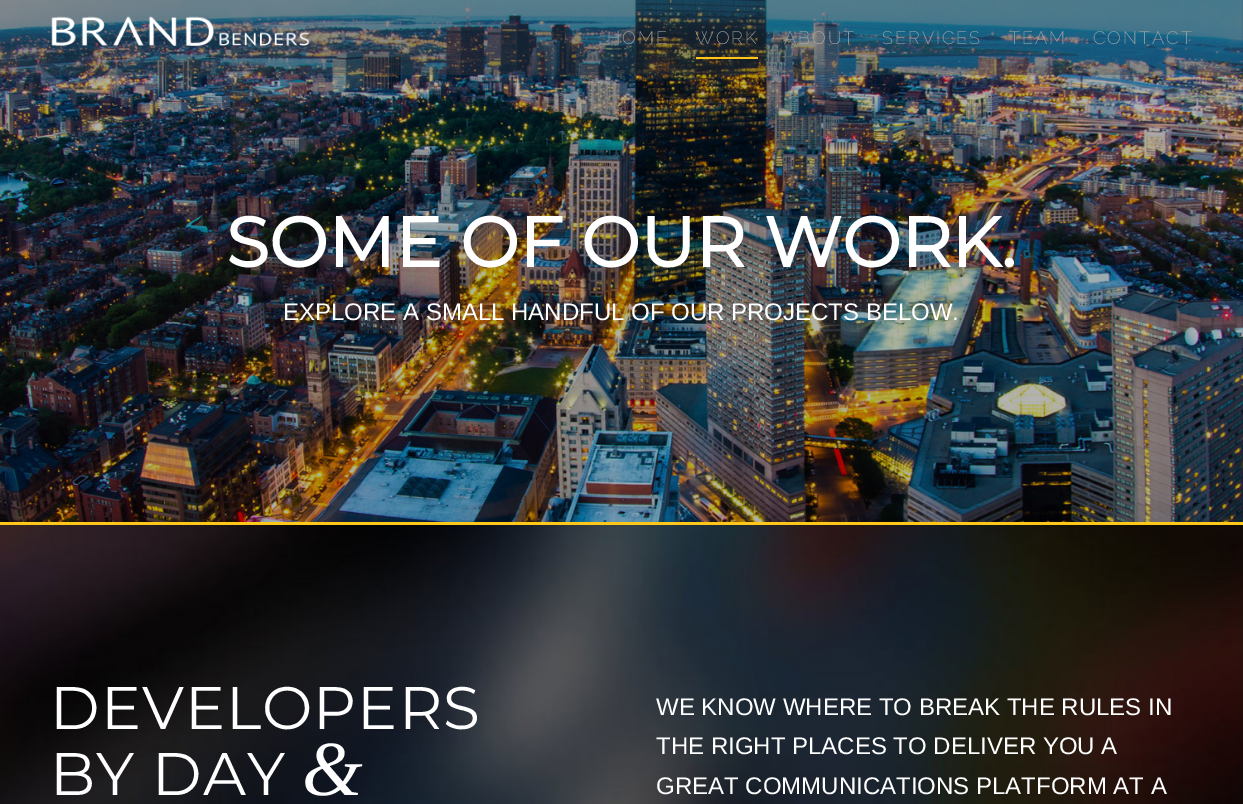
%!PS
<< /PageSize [1243 804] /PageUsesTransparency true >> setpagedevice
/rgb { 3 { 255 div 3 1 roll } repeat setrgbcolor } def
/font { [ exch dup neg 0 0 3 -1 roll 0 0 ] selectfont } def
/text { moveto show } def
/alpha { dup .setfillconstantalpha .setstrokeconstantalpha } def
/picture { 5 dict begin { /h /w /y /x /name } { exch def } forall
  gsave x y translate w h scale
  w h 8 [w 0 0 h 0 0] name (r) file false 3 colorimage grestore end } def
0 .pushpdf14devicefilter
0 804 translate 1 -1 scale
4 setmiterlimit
255 255 255 rgb
0 0 1243 804 rectfill
(img_02.rgb) 0 0 1243 522 picture
0.1 alpha
0 0 1243 75 rectfill
0.25 alpha
0 0 0 rgb
0 0 1243 75 rectfill
1 alpha
(img_01.rgb) 51 16 259 30 picture
255 198 25 rgb
696 57 62 2 rectfill
255 199 25 rgb
0 522 1243 3 rectfill
(img_03.rgb) 0 525 1243 279 picture
/Raleway-ExtraLight 18 font
170 170 170 rgb
607 44 moveto 2 0 (HOME) ashow
695 44 moveto 2 0 (WORK) ashow
784 44 moveto 2 0 (ABOUT) ashow
882 44 moveto 2 0 (SERVICES) ashow
1009 44 moveto 2 0 (TEAM) ashow
1093 44 moveto 2 0 (CONTACT) ashow
/Montserrat-Bold 70 font
255 255 255 rgb
(SOME OF OUR WORK.) 226 267 text
/LiberationSans-Regular 24 font
(EXPLORE A SMALL HANDFUL OF OUR PROJECTS BELOW.) 283 320 text
/Montserrat-Thin 60 font
50 729 moveto 1 0 (DEVELOPERS) ashow
50 795 moveto 1 0 (BY DAY) ashow
/LiberationSerif-Italic 78 font
302 795 moveto 1 0 (&) ashow
/LiberationSans-Regular 24 font
(WE KNOW WHERE TO BREAK THE RULES IN) 656 715 text
(THE RIGHT PLACES TO DELIVER YOU A) 656 754 text
(GREAT COMMUNICATIONS PLATFORM AT A) 656 794 text
.poppdf14devicefilter showpage
